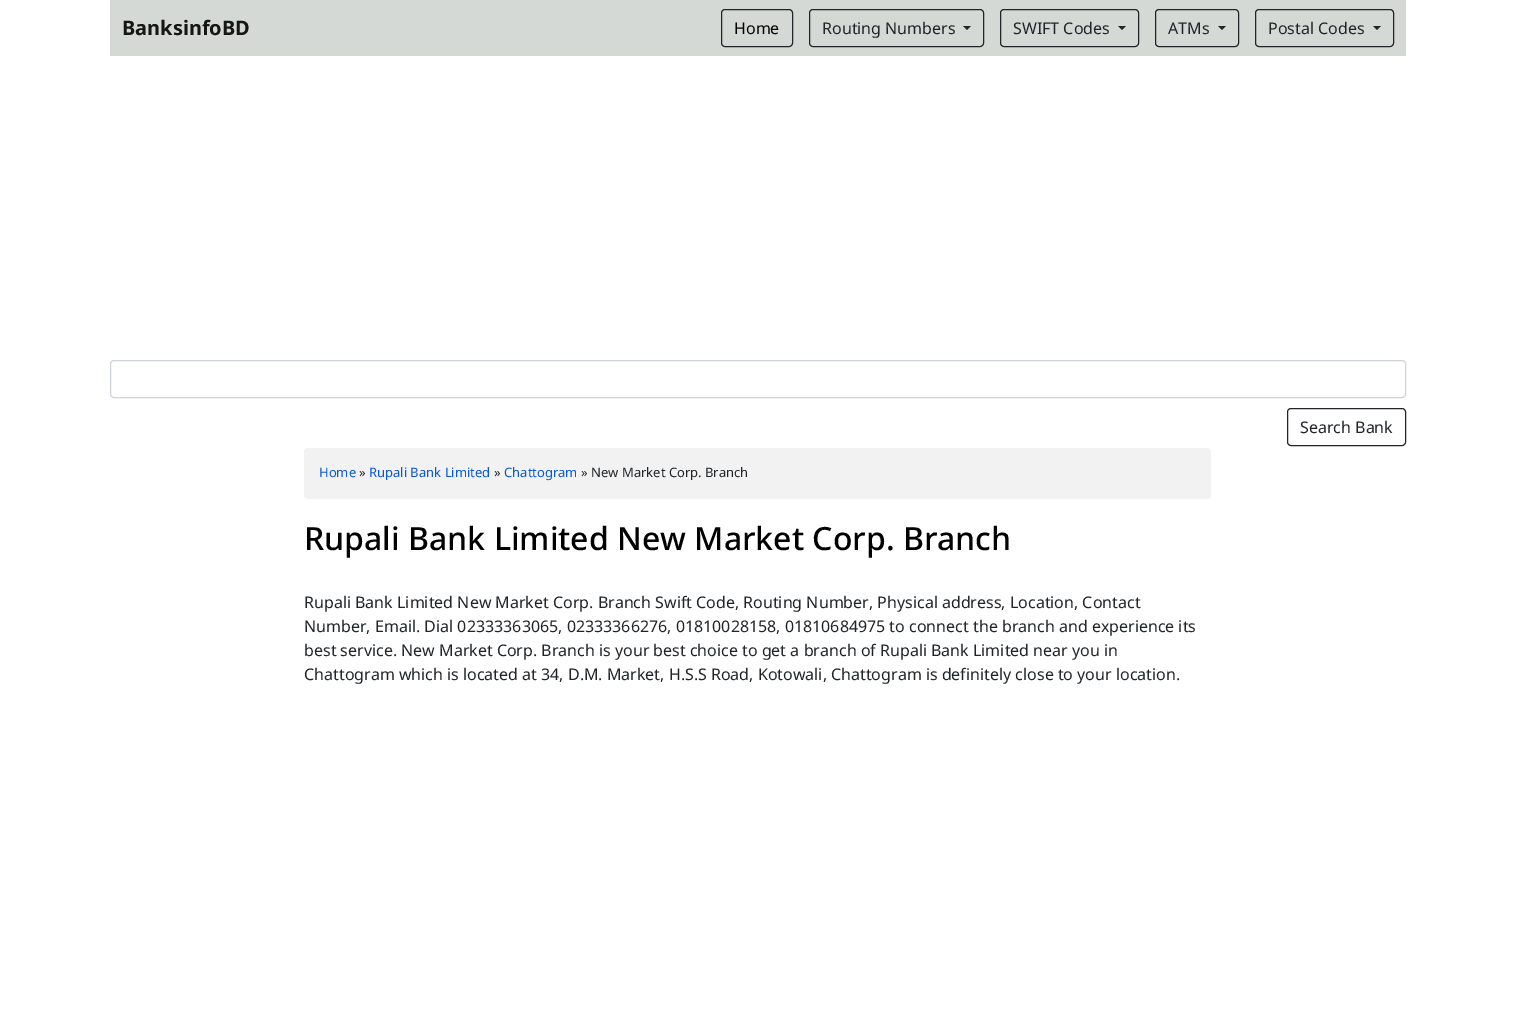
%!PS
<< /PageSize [1515 1022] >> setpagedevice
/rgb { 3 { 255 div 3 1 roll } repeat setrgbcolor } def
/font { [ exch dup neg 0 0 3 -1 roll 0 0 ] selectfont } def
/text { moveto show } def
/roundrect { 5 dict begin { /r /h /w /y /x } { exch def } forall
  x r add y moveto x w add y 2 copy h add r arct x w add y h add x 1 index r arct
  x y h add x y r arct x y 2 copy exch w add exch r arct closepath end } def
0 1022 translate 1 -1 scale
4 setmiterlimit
255 255 255 rgb
0 0 1515 1022 rectfill
212 217 214 rgb
110 0 1296 56 rectfill
33 37 41 rgb
721.5 9.5 71 37 3.5 roundrect stroke
809.5 9.5 174 37 3.5 roundrect stroke
963 26 moveto 8 0 rlineto -4 4 rlineto closepath fill
1000.5 9.5 138 37 3.5 roundrect stroke
1118 26 moveto 8 0 rlineto -4 4 rlineto closepath fill
1155.5 9.5 83 37 3.5 roundrect stroke
1218 26 moveto 8 0 rlineto -4 4 rlineto closepath fill
1255.5 9.5 138 37 3.5 roundrect stroke
1373 26 moveto 8 0 rlineto -4 4 rlineto closepath fill
206 212 218 rgb
110.5 360.5 1295 37 3.5 roundrect stroke
33 37 41 rgb
1287.5 408.5 118 37 3.5 roundrect stroke
242 242 242 rgb
304 448 907 51 4 roundrect fill
/NotoSans-Bold 20 font
21 22 21 rgb
(BanksinfoBD) 122 35 text
/NotoSans-Regular 16 font
0 0 0 rgb
(Home) 734 34 text
33 37 41 rgb
(Routing Numbers) 822 34 text
(SWIFT Codes) 1013 34 text
(ATMs) 1168 34 text
(Postal Codes) 1268 34 text
(Search Bank) 1300 433 text
/NotoSans-Regular 13 font
10 88 212 rgb
(Home) 319 477 text
33 37 41 rgb
(») 359 477 text
10 88 212 rgb
(Rupali Bank Limited) 369 477 text
33 37 41 rgb
(») 494 477 text
10 88 212 rgb
(Chattogram) 504 477 text
33 37 41 rgb
(» New Market Corp. Branch) 581 477 text
/NotoSans-Medium 32 font
0 0 0 rgb
(Rupali Bank Limited New Market Corp. Branch) 304 550 text
/NotoSans-Regular 16 font
33 37 41 rgb
(Rupali Bank Limited New Market Corp. Branch Swift Code, Routing Number, Physical address, Location, Contact) 304 608 text
(Number, Email. Dial 02333363065, 02333366276, 01810028158, 01810684975 to connect the branch and experience its) 304 632 text
(best service. New Market Corp. Branch is your best choice to get a branch of Rupali Bank Limited near you in) 304 656 text
(Chattogram which is located at 34, D.M. Market, H.S.S Road, Kotowali, Chattogram is definitely close to your location.) 304 680 text
showpage
